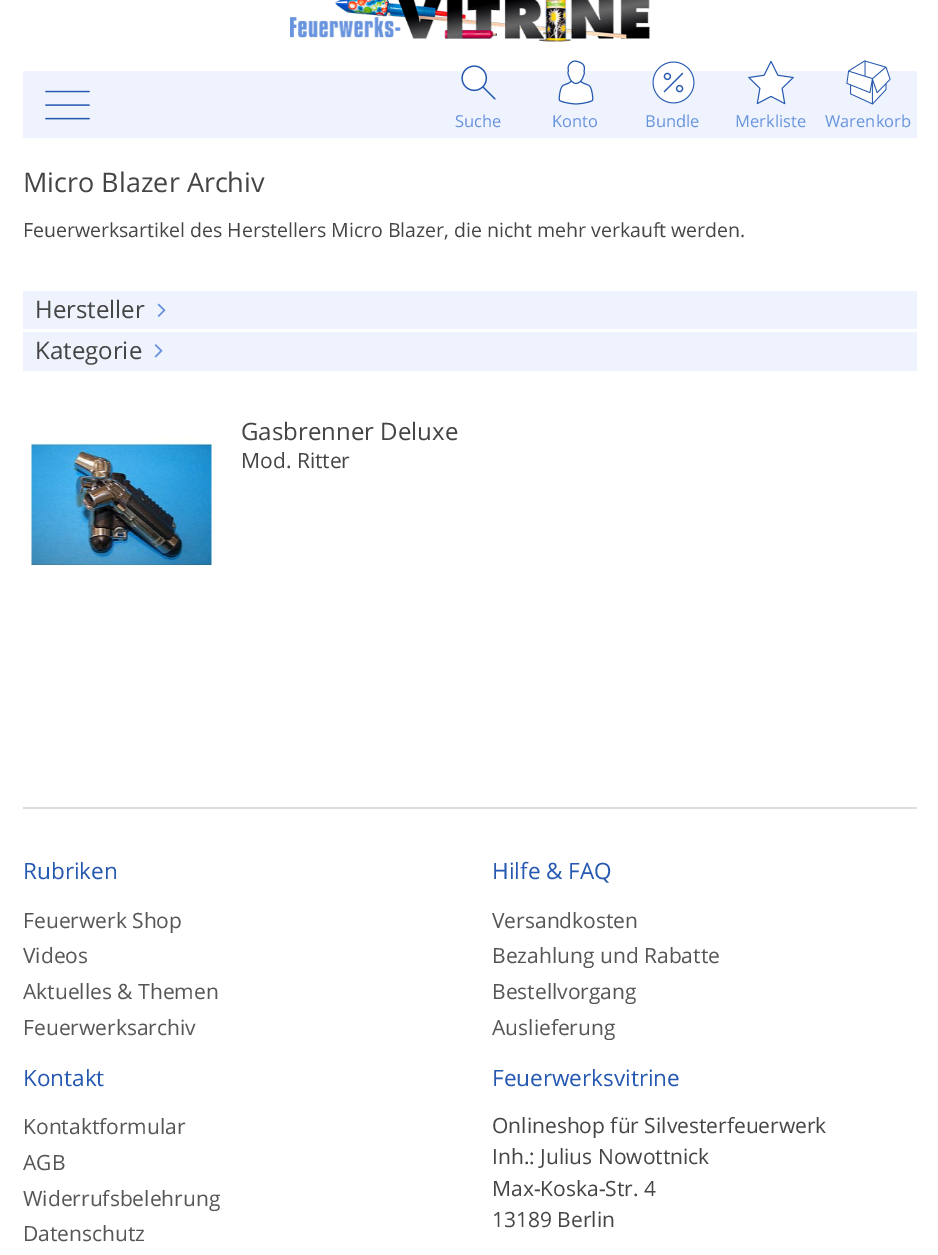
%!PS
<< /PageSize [938 1255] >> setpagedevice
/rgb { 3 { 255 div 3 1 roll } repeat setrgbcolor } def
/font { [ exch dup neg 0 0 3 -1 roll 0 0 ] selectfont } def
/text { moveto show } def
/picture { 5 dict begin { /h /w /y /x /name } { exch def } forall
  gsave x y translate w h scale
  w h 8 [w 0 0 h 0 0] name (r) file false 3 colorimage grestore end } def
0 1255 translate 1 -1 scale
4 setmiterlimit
255 255 255 rgb
0 0 938 1255 rectfill
238 243 253 rgb
23 71 894 67 rectfill
(img_01.rgb) 45 90 45 30 picture
(img_02.rgb) 290 0 360 42 picture
(img_03.rgb) 461 65 35 35 picture
(img_04.rgb) 558 60 36 45 picture
(img_05.rgb) 652 61 43 43 picture
(img_06.rgb) 748 60 46 45 picture
(img_07.rgb) 846 60 45 45 picture
23 291 894 38 rectfill
(img_08.rgb) 157 303 9 14 picture
23 332 894 39 rectfill
(img_09.rgb) 154 344 9 14 picture
(img_10.rgb) 31 438 181 128 picture
221 221 221 rgb
23 807 894 2 rectfill
/OpenSans-Regular 16.5 font
104 147 221 rgb
(Suche) 455 127 text
(Konto) 552 127 text
(Bundle) 645 127 text
(Merkliste) 735 127 text
(Warenkorb) 825 127 text
/OpenSans-Regular 27 font
69 69 69 rgb
(Micro Blazer Archiv) 23 192 text
/OpenSans-Regular 19.5 font
(Feuerwerksartikel des Herstellers Micro Blazer, die nicht mehr verkauft werden.) 23 237 text
/OpenSans-Regular 24 font
(Hersteller) 35 318 text
(Kategorie) 35 359 text
(Gasbrenner Deluxe) 241 440 text
/OpenSans-Regular 21 font
(Mod. Ritter) 241 468 text
/OpenSans-Regular 22.5 font
37 88 176 rgb
(Rubriken) 23 879 text
/OpenSans-Regular 21 font
86 86 86 rgb
(Feuerwerk Shop) 23 928 text
(Videos) 23 963 text
(Aktuelles & Themen) 23 999 text
(Feuerwerksarchiv) 23 1035 text
/OpenSans-Regular 22.5 font
37 88 176 rgb
(Hilfe & FAQ) 492 879 text
/OpenSans-Regular 21 font
86 86 86 rgb
(Versandkosten) 492 928 text
(Bezahlung und Rabatte) 492 963 text
(Bestellvorgang) 492 999 text
(Auslieferung) 492 1035 text
/OpenSans-Regular 22.5 font
37 88 176 rgb
(Kontakt) 23 1086 text
/OpenSans-Regular 21 font
86 86 86 rgb
(Kontaktformular) 23 1134 text
(AGB) 23 1170 text
(Widerrufsbelehrung) 23 1206 text
(Datenschutz) 23 1241 text
/OpenSans-Regular 22.5 font
37 88 176 rgb
(Feuerwerksvitrine) 492 1086 text
/OpenSans-Regular 21 font
69 69 69 rgb
(Onlineshop für Silvesterfeuerwerk) 492 1133 text
(Inh.: Julius Nowottnick) 492 1164 text
(Max-Koska-Str. 4) 492 1196 text
(13189 Berlin) 492 1227 text
showpage
